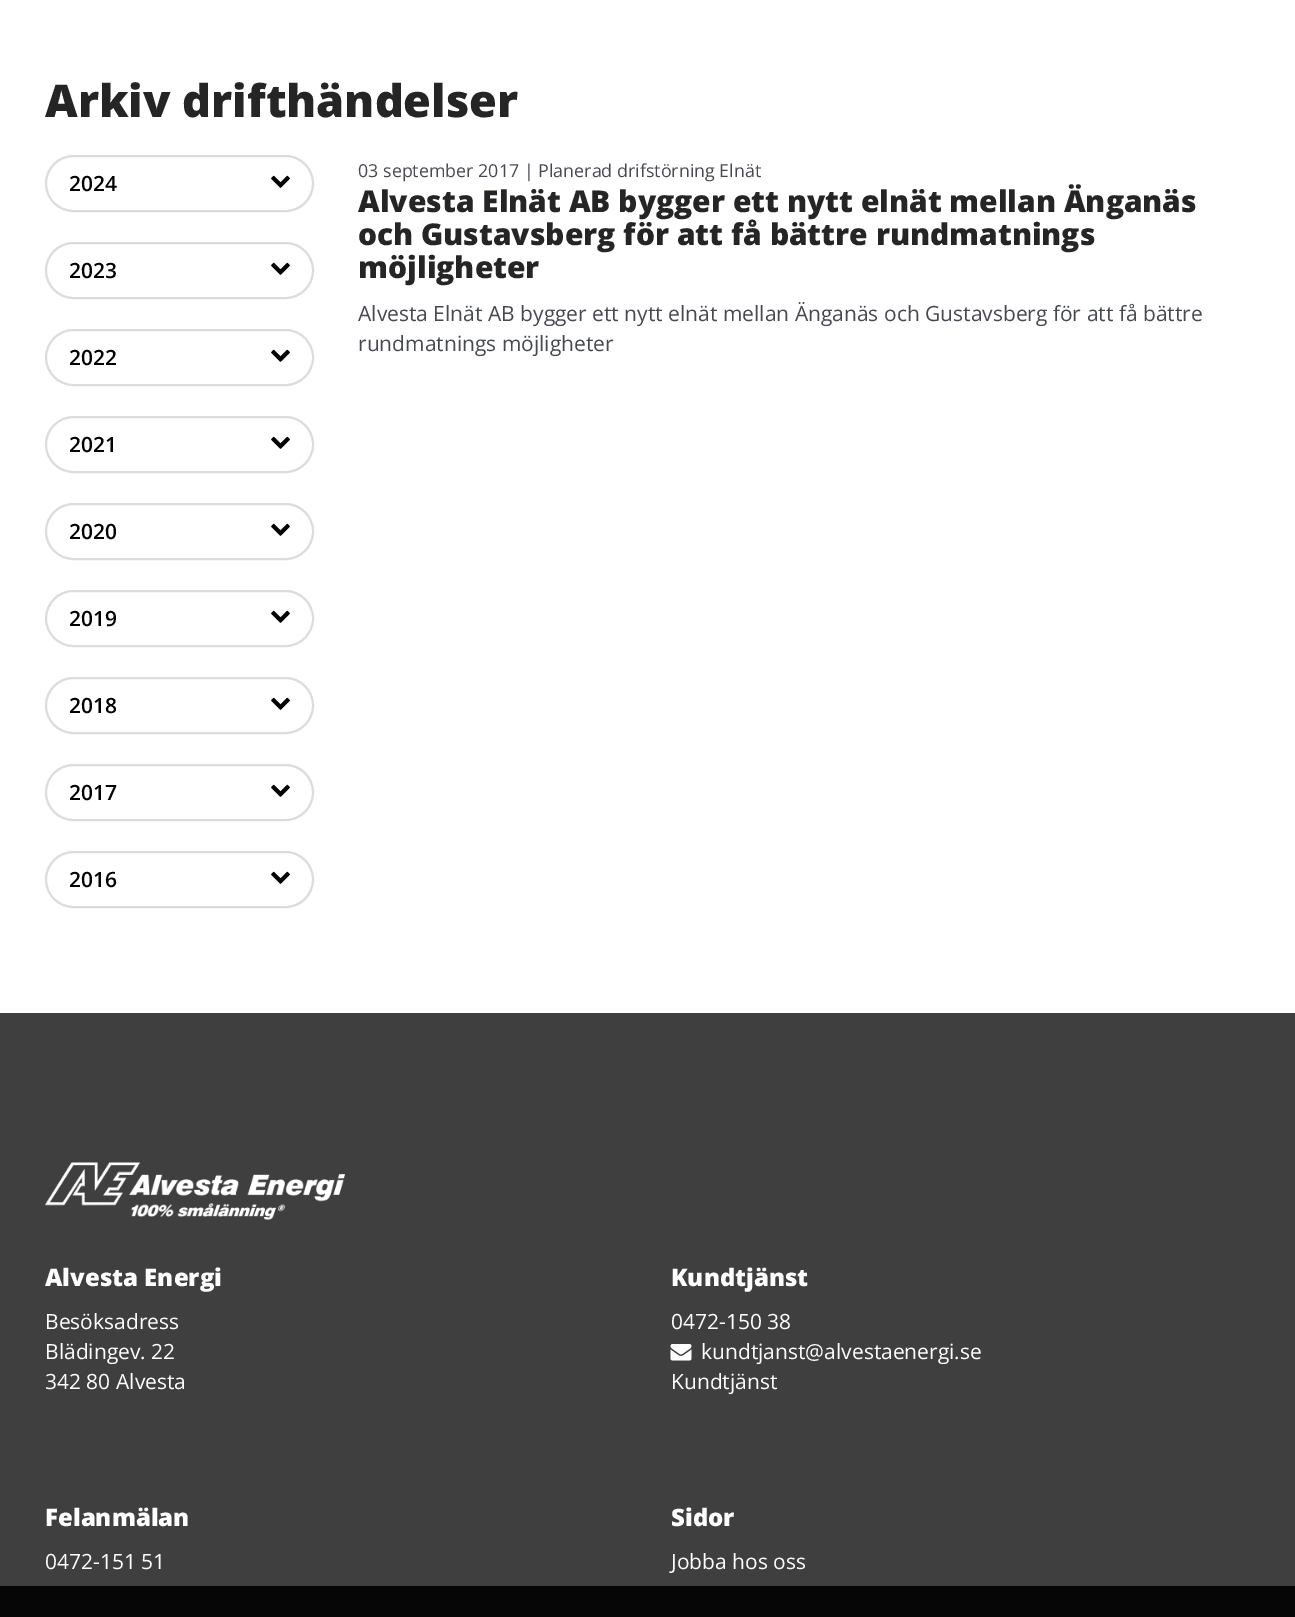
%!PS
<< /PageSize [1295 1617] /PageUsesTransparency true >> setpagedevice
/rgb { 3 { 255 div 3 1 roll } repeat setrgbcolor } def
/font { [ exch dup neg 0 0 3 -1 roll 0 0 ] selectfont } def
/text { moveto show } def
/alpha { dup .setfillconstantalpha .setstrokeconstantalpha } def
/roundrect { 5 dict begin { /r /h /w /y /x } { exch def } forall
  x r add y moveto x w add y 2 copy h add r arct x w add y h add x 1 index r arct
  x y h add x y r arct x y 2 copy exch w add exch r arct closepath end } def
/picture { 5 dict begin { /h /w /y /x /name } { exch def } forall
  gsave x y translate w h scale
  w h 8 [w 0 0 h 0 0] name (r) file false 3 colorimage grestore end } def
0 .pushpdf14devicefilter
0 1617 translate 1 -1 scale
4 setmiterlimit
255 255 255 rgb
0 0 1295 1617 rectfill
220 220 220 rgb
2 setlinewidth
46 156 267 55 27.5 roundrect stroke
(img_01.rgb) 271 175 19 13 picture
46 243 267 55 27.5 roundrect stroke
(img_01.rgb) 271 262 19 13 picture
46 330 267 55 27.5 roundrect stroke
(img_01.rgb) 271 349 19 13 picture
46 417 267 55 27.5 roundrect stroke
(img_01.rgb) 271 436 19 13 picture
46 504 267 55 27.5 roundrect stroke
(img_01.rgb) 271 523 19 13 picture
46 591 267 55 27.5 roundrect stroke
(img_01.rgb) 271 610 19 13 picture
46 678 267 55 27.5 roundrect stroke
(img_01.rgb) 271 697 19 13 picture
46 765 267 55 27.5 roundrect stroke
(img_01.rgb) 271 784 19 13 picture
46 852 267 55 27.5 roundrect stroke
(img_01.rgb) 271 871 19 13 picture
63 63 63 rgb
0 1013 1295 604 rectfill
(img_02.rgb) 45 1162 300 58 picture
(img_03.rgb) 670 1344 22 17 picture
0.9 alpha
0 0 0 rgb
0 1586 1295 31 rectfill
/OpenSans-ExtraBold 45 font
1 alpha
37 37 37 rgb
(Arkiv drifthändelser) 45 117 text
/OpenSans-SemiBold 21 font
0 0 0 rgb
(2024) 69 191 text
(2023) 69 278 text
(2022) 69 365 text
(2021) 69 452 text
(2020) 69 539 text
(2019) 69 626 text
(2018) 69 713 text
(2017) 69 800 text
(2016) 69 887 text
/OpenSans-Regular 17.85 font
71 73 80 rgb
(03 september 2017 | Planerad drifstörning Elnät) 358 177 text
/OpenSans-ExtraBold 30 font
37 37 37 rgb
(Alvesta Elnät AB bygger ett nytt elnät mellan Änganäs) 358 212 text
(och Gustavsberg för att få bättre rundmatnings) 358 245 text
(möjligheter) 358 278 text
/OpenSans-Regular 21 font
71 73 80 rgb
(Alvesta Elnät AB bygger ett nytt elnät mellan Änganäs och Gustavsberg för att få bättre) 358 321 text
(rundmatnings möjligheter) 358 351 text
/OpenSans-ExtraBold 24 font
255 255 255 rgb
(Alvesta Energi) 45 1286 text
/OpenSans-Regular 21 font
(Besöksadress) 45 1329 text
(Blädingev. 22) 45 1359 text
(342 80 Alvesta) 45 1389 text
/OpenSans-ExtraBold 24 font
(Kundtjänst) 671 1286 text
/OpenSans-Regular 21 font
(0472-150 38) 671 1329 text
(kundtjanst@alvestaenergi.se) 701 1359 text
(Kundtjänst) 671 1389 text
/OpenSans-ExtraBold 24 font
(Felanmälan) 45 1526 text
/OpenSans-Regular 21 font
(0472-151 51) 45 1569 text
/OpenSans-ExtraBold 24 font
(Sidor) 671 1526 text
/OpenSans-Regular 21 font
(Jobba hos oss) 671 1569 text
.poppdf14devicefilter showpage
